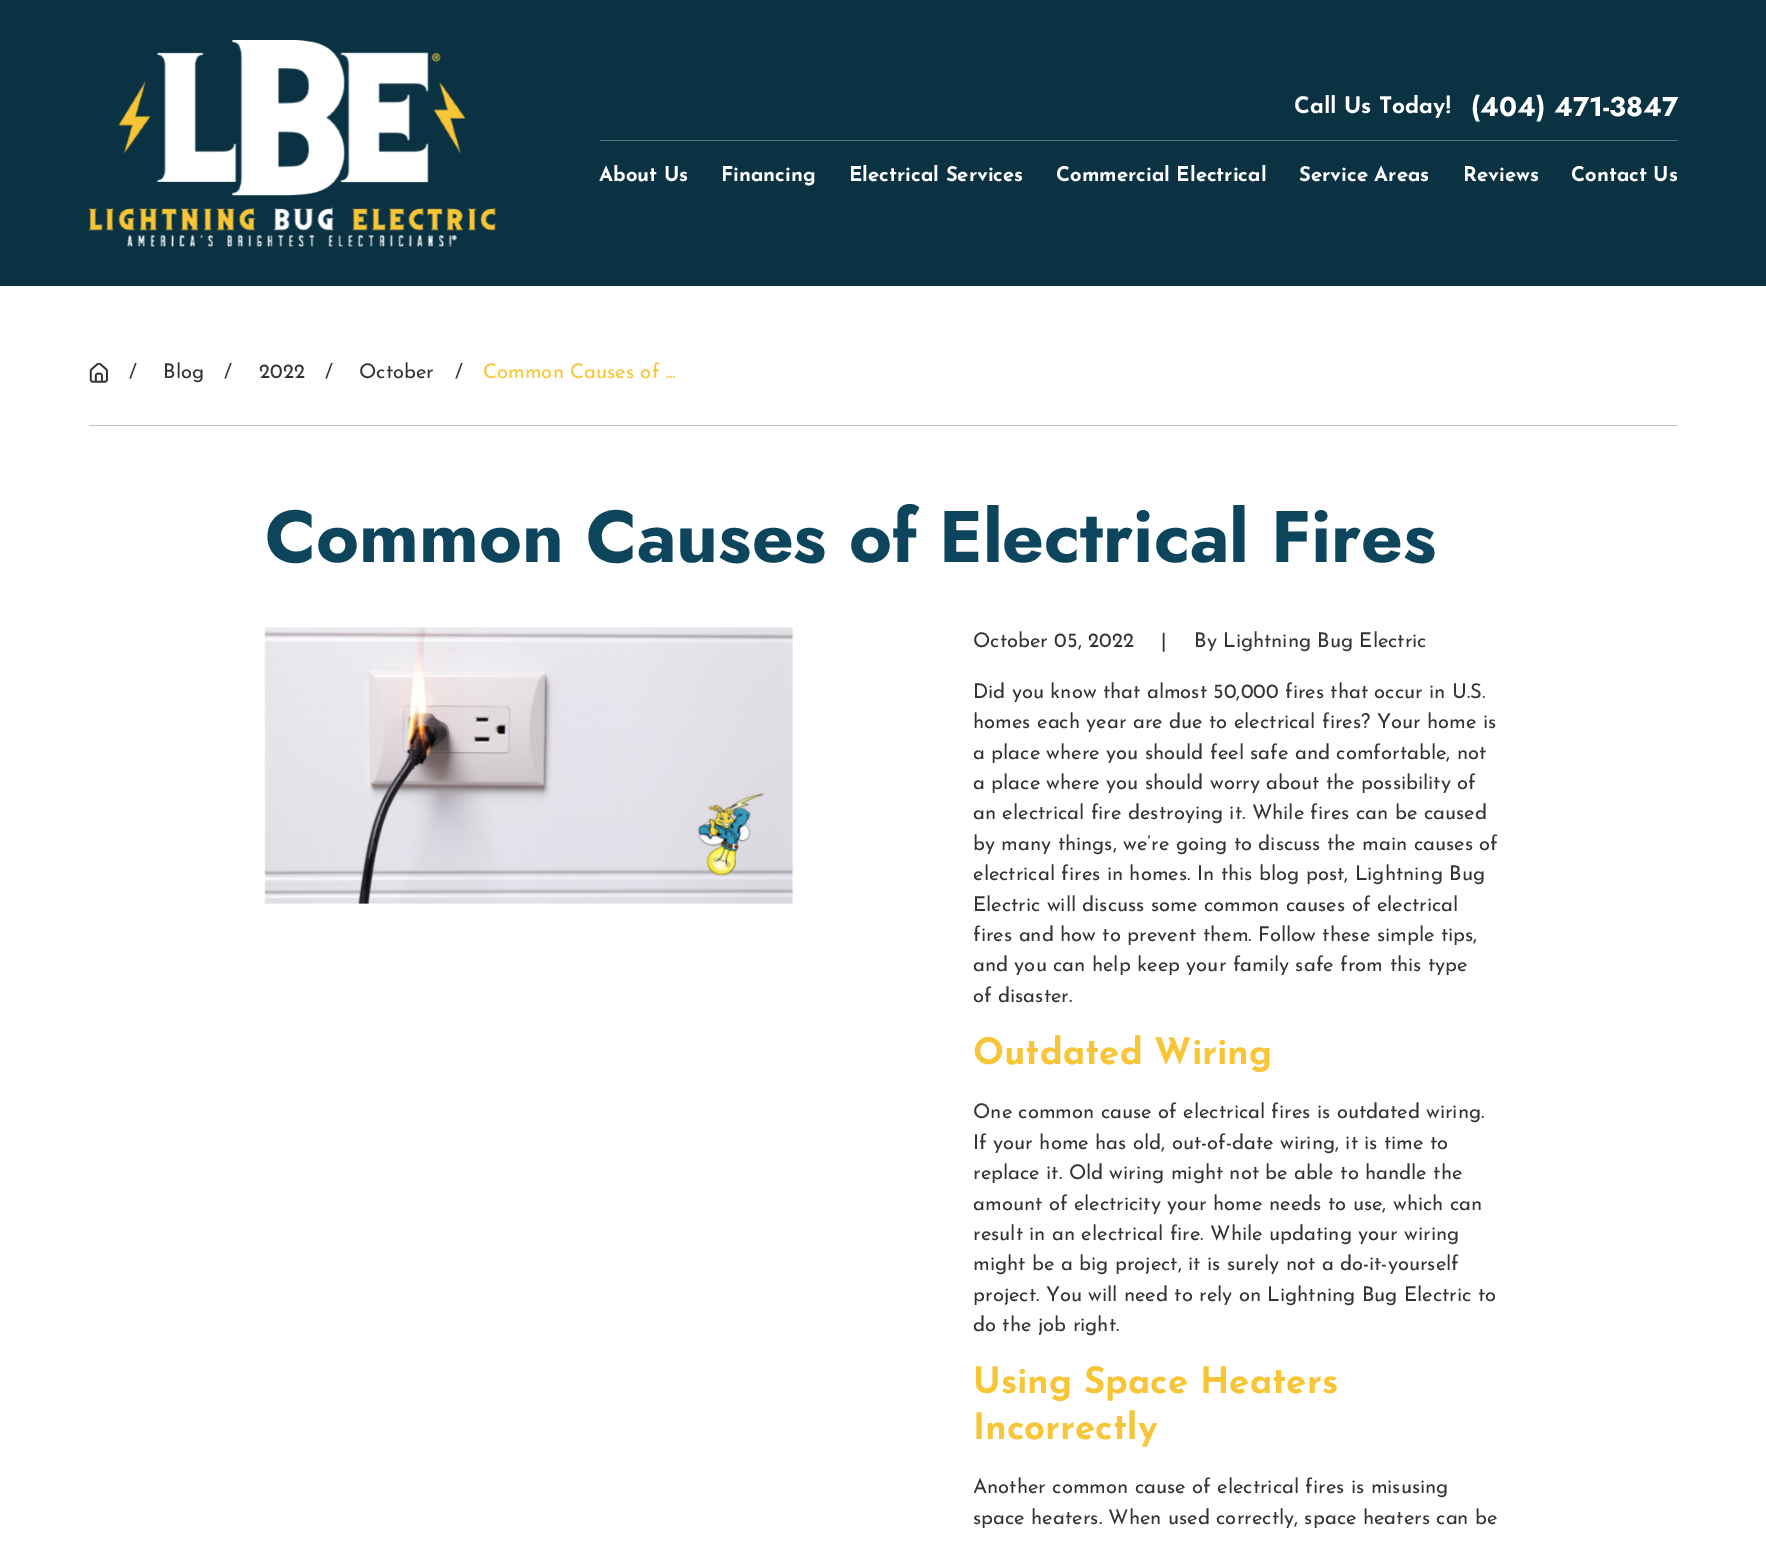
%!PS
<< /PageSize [1766 1541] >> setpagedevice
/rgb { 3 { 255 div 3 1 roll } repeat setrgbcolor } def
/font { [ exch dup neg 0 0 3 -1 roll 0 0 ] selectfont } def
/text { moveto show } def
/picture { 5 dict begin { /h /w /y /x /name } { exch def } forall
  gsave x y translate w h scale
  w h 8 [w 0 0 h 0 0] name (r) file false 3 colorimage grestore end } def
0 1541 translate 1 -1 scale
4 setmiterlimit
255 255 255 rgb
0 0 1766 1541 rectfill
11 50 66 rgb
0 0 1766 286 rectfill
(img_01.rgb) 88 40 408 207 picture
84 112 123 rgb
600 140 1078 1 rectfill
194 194 194 rgb
89 425 1589 1 rectfill
(img_02.rgb) 89 363 19 20 picture
(img_03.rgb) 264 627 529 277 picture
/JosefinSans-Bold 22.75 font
255 255 255 rgb
(Call Us Today!) 1294 113 text
/Jost-Bold 27.25 font
(\(404\) 471-3847) 1471 116 text
/JosefinSans-Bold 20.25 font
(About Us) 599 181 text
(Financing) 721 181 text
(Electrical Services) 849 181 text
(Commercial Electrical) 1056 181 text
(Service Areas) 1299 181 text
(Reviews) 1463 181 text
(Contact Us) 1571 181 text
/JosefinSans-Regular 20.25 font
52 52 52 rgb
(/) 129 378 text
(Blog) 163 378 text
(/) 224 378 text
(2022) 259 378 text
(/) 325 378 text
(October) 359 378 text
(/) 455 378 text
247 197 54 rgb
(Common Causes of ...) 483 378 text
/Jost-Bold 73 font
13 69 92 rgb
(Common Causes of Electrical Fires) 265 562 text
/JosefinSans-Regular 20.25 font
52 52 52 rgb
(October 05, 2022) 973 647 text
(|) 1161 647 text
(By Lightning Bug Electric) 1194 647 text
(Did you know that almost 50,000 fires that occur in U.S.) 973 698 text
(homes each year are due to electrical fires? Your home is) 973 728 text
(a place where you should feel safe and comfortable, not) 973 759 text
(a place where you should worry about the possibility of) 973 789 text
(an electrical fire destroying it. While fires can be caused) 973 819 text
(by many things, we’re going to discuss the main causes of) 973 850 text
(electrical fires in homes. In this blog post, Lightning Bug) 973 880 text
(Electric will discuss some common causes of electrical) 973 911 text
(fires and how to prevent them. Follow these simple tips,) 973 941 text
(and you can help keep your family safe from this type) 973 971 text
(of disaster.) 973 1002 text
/JosefinSans-Bold 36.5 font
247 197 54 rgb
(Outdated Wiring) 973 1064 text
/JosefinSans-Regular 20.25 font
52 52 52 rgb
(One common cause of electrical fires is outdated wiring.) 973 1118 text
(If your home has old, out-of-date wiring, it is time to) 973 1149 text
(replace it. Old wiring might not be able to handle the) 973 1179 text
(amount of electricity your home needs to use, which can) 973 1210 text
(result in an electrical fire. While updating your wiring) 973 1240 text
(might be a big project, it is surely not a do-it-yourself) 973 1270 text
(project. You will need to rely on Lightning Bug Electric to) 973 1301 text
(do the job right.) 973 1331 text
/JosefinSans-Bold 36.5 font
247 197 54 rgb
(Using Space Heaters) 973 1393 text
(Incorrectly) 973 1439 text
/JosefinSans-Regular 20.25 font
52 52 52 rgb
(Another common cause of electrical fires is misusing) 973 1493 text
(space heaters. When used correctly, space heaters can be) 973 1524 text
showpage
